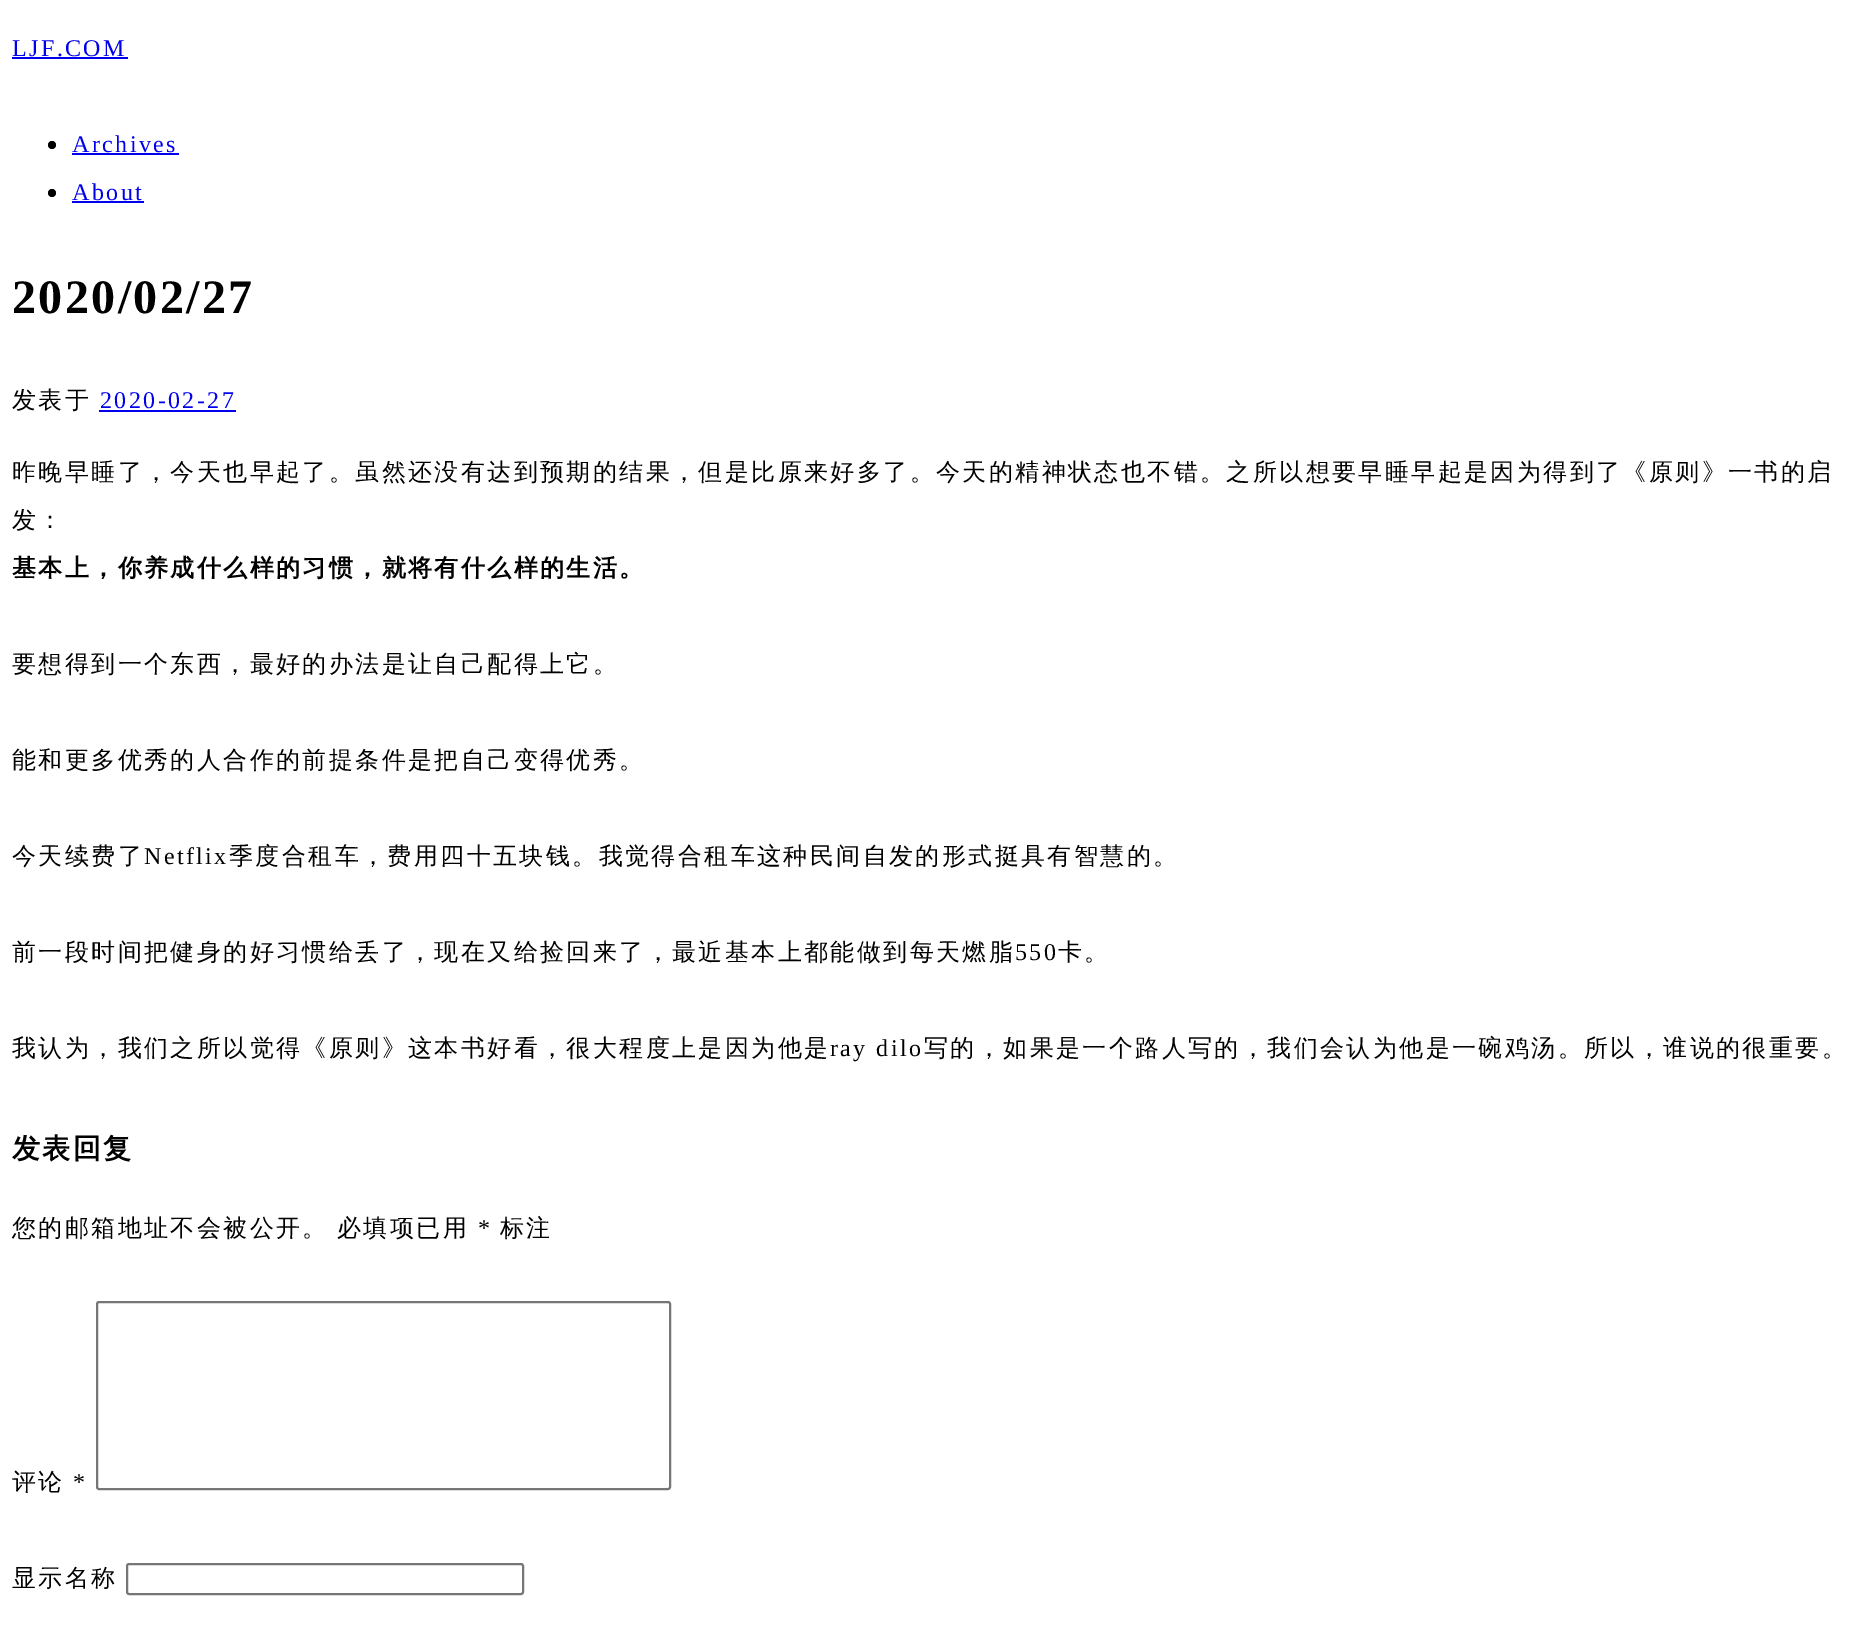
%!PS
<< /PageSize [1862 1625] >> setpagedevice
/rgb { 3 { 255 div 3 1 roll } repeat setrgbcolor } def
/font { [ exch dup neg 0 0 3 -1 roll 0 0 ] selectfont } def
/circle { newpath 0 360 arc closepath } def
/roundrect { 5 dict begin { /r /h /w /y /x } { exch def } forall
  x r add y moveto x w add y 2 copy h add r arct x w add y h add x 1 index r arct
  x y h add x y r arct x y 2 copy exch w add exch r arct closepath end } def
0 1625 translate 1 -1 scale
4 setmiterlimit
255 255 255 rgb
0 0 1862 1625 rectfill
0 0 238 rgb
12 57 116 2 rectfill
0 0 0 rgb
52 145 4 circle fill
0 0 238 rgb
72 153 107 2 rectfill
0 0 0 rgb
52 193 4 circle fill
0 0 238 rgb
72 201 72 2 rectfill
99 410 137 2 rectfill
118 118 118 rgb
2 setlinewidth
97 1302 573 187 2 roundrect stroke
127 1564 396 30 2 roundrect stroke
/LiberationSerif-Regular 24 font
0 0 238 rgb
12 56 moveto 2.4 0 (LJF.COM) ashow
72 152 moveto 2.4 0 (Archives) ashow
72 200 moveto 2.4 0 (About) ashow
/LiberationSerif-Bold 48 font
0 0 0 rgb
12 313 moveto 2.4 0 (2020/02/27) ashow
/WenQuanYiZenHei-Medium 24 font
12 408 moveto 2.4 0 (发表于) ashow
/LiberationSerif-Regular 24 font
0 0 238 rgb
100 408 moveto 2.4 0 (2020-02-27) ashow
/WenQuanYiZenHei-Medium 24 font
0 0 0 rgb
12 480 moveto 2.4 0 (昨晚早睡了，今天也早起了。虽然还没有达到预期的结果，但是比原来好多了。今天的精神状态也不错。之所以想要早睡早起是因为得到了《原则》一书的启) ashow
12 528 moveto 2.4 0 (发：) ashow
/WenQuanYiZenHei-Bold 24 font
12 576 moveto 2.4 0 (基本上，你养成什么样的习惯，就将有什么样的生活。) ashow
/WenQuanYiZenHei-Medium 24 font
12 672 moveto 2.4 0 (要想得到一个东西，最好的办法是让自己配得上它。) ashow
12 768 moveto 2.4 0 (能和更多优秀的人合作的前提条件是把自己变得优秀。) ashow
12 864 moveto 2.4 0 (今天续费了) ashow
/LiberationSerif-Regular 24 font
144 864 moveto 2.4 0 (Netflix) ashow
/WenQuanYiZenHei-Medium 24 font
229 864 moveto 2.4 0 (季度合租车，费用四十五块钱。我觉得合租车这种民间自发的形式挺具有智慧的。) ashow
12 960 moveto 2.4 0 (前一段时间把健身的好习惯给丢了，现在又给捡回来了，最近基本上都能做到每天燃脂) ashow
/LiberationSerif-Regular 24 font
1015 960 moveto 2.4 0 (550) ashow
/WenQuanYiZenHei-Medium 24 font
1058 960 moveto 2.4 0 (卡。) ashow
12 1056 moveto 2.4 0 (我认为，我们之所以觉得《原则》这本书好看，很大程度上是因为他是) ashow
/LiberationSerif-Regular 24 font
830 1056 moveto 2.4 0 (ray dilo) ashow
/WenQuanYiZenHei-Medium 24 font
924 1056 moveto 2.4 0 (写的，如果是一个路人写的，我们会认为他是一碗鸡汤。所以，谁说的很重要。) ashow
/WenQuanYiZenHei-Bold 28 font
12 1158 moveto 2.4 0 (发表回复) ashow
/WenQuanYiZenHei-Medium 24 font
12 1236 moveto 2.4 0 (您的邮箱地址不会被公开。) ashow
337 1236 moveto 2.4 0 (必填项已用) ashow
/LiberationSerif-Regular 24 font
478 1236 moveto 2.4 0 (*) ashow
/WenQuanYiZenHei-Medium 24 font
500 1236 moveto 2.4 0 (标注) ashow
12 1490 moveto 2.4 0 (评论) ashow
/LiberationSerif-Regular 24 font
73 1490 moveto 2.4 0 (*) ashow
/WenQuanYiZenHei-Medium 24 font
12 1586 moveto 2.4 0 (显示名称) ashow
showpage
